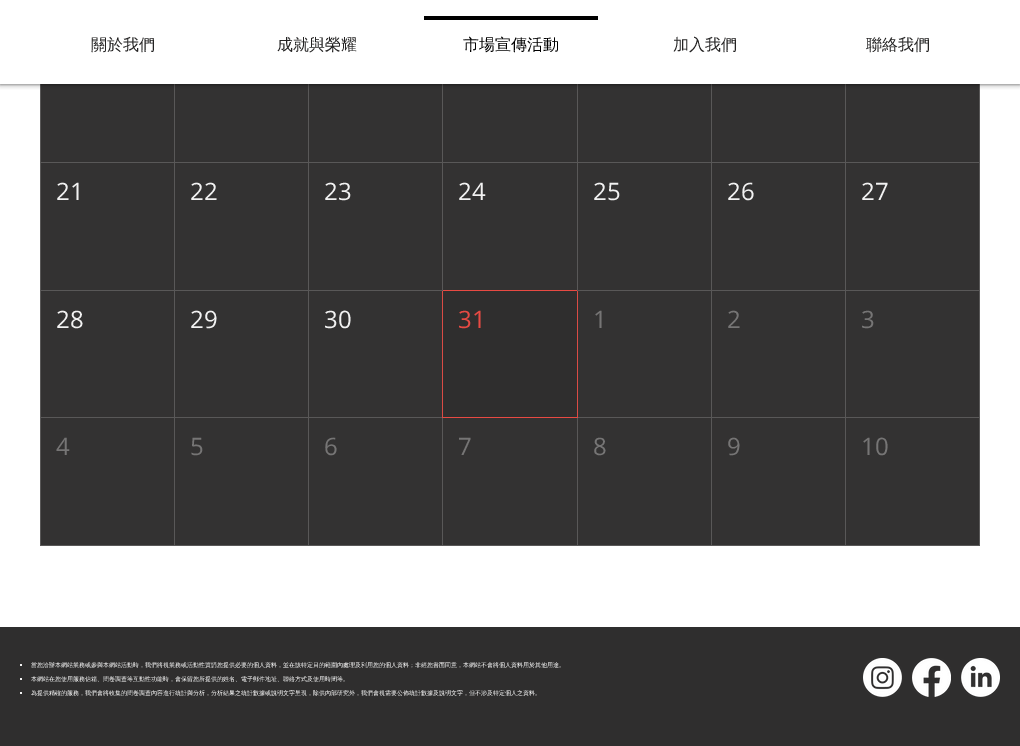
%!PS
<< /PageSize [1020 746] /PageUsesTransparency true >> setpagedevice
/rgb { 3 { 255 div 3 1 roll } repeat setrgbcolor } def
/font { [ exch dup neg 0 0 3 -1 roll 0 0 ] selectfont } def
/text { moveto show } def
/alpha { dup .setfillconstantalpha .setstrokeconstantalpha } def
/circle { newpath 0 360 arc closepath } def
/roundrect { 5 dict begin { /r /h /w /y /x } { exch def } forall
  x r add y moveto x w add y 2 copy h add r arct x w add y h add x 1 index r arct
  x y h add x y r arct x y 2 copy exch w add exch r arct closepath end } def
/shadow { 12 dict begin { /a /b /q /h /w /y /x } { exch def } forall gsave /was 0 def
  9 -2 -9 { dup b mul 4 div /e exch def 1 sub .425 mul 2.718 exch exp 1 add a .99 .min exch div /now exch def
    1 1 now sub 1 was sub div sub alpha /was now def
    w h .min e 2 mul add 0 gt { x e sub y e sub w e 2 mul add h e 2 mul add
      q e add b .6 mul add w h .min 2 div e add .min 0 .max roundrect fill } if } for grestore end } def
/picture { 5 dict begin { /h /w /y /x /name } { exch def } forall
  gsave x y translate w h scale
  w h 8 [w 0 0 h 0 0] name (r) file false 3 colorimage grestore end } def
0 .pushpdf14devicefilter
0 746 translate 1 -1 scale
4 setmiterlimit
255 255 255 rgb
0 0 1020 746 rectfill
51 50 50 rgb
846 84 133 78 rectfill
712 84 133 78 rectfill
578 84 133 78 rectfill
443 84 134 78 rectfill
309 84 133 78 rectfill
175 84 133 78 rectfill
41 84 133 78 rectfill
89 88 88 rgb
41 162 939 1 rectfill
979 84 1 79 rectfill
41 290 402 1 rectfill
577 290 403 1 rectfill
232 74 67 rgb
442 290 136 1 rectfill
89 88 88 rgb
577 417 403 1 rectfill
218 75 69 rgb
577 290 1 128 rectfill
89 88 88 rgb
41 417 402 1 rectfill
232 74 67 rgb
442 417 136 1 rectfill
218 75 69 rgb
442 290 1 128 rectfill
89 88 88 rgb
442 84 1 207 rectfill
577 84 1 207 rectfill
40 545 940 1 rectfill
40 84 1 462 rectfill
174 84 1 461 rectfill
308 84 1 461 rectfill
711 84 1 461 rectfill
845 84 1 461 rectfill
0 0 0 rgb
0 0 1020 84 0 2.5 0.7 shadow
255 255 255 rgb
0 0 1020 84 rectfill
0 0 0 rgb
424 16 174 4 rectfill
47 46 46 rgb
443 291 134 126 rectfill
51 50 50 rgb
846 418 133 127 rectfill
712 418 133 127 rectfill
578 418 133 127 rectfill
309 418 133 127 rectfill
175 418 133 127 rectfill
41 418 133 127 rectfill
846 291 133 126 rectfill
712 291 133 126 rectfill
578 291 133 126 rectfill
309 291 133 126 rectfill
175 291 133 126 rectfill
41 291 133 126 rectfill
846 163 133 127 rectfill
712 163 133 127 rectfill
578 163 133 127 rectfill
309 163 133 127 rectfill
175 163 133 127 rectfill
41 163 133 127 rectfill
443 163 134 127 rectfill
89 88 88 rgb
979 163 1 255 rectfill
218 75 69 rgb
577 417 1 1 rectfill
89 88 88 rgb
979 418 1 127 rectfill
442 418 1 127 rectfill
51 50 50 rgb
443 418 134 127 rectfill
89 88 88 rgb
577 418 1 127 rectfill
47 46 46 rgb
0 627 1020 119 rectfill
255 255 255 rgb
21 665 1 circle fill
21 679 1 circle fill
21 693 1 circle fill
(img_01.rgb) 863 658 39 39 picture
(img_02.rgb) 912 658 39 39 picture
(img_03.rgb) 961 658 39 39 picture
/WenQuanYiZenHei-Medium 16 font
36 35 35 rgb
(關於我們) 91 50 text
(成就與榮耀) 277 50 text
0 0 0 rgb
(市場宣傳活動) 463 50 text
36 35 35 rgb
(加入我們) 673 50 text
(聯絡我們) 866 50 text
/OpenSans-Regular 24 font
242 242 242 rgb
(21) 56 200 text
(22) 190 200 text
(23) 324 200 text
(24) 458 200 text
(25) 593 200 text
(26) 727 200 text
(27) 861 200 text
(28) 56 328 text
(29) 190 328 text
(30) 324 328 text
232 74 67 rgb
(31) 458 328 text
118 117 117 rgb
(1) 593 328 text
(2) 727 328 text
(3) 861 328 text
(4) 56 455 text
(5) 190 455 text
(6) 324 455 text
(7) 458 455 text
(8) 593 455 text
(9) 727 455 text
(10) 861 455 text
/WenQuanYiZenHei-Medium 6 font
255 255 255 rgb
(當您洽辦本網站業務或參與本網站活動時，我們將視業務或活動性質請您提供必要的個人資料，並在該特定目的範圍內處理及利用您的個人資料；非經您書面同意，本網站不會將個人資料用於其他用途。) 31 667 text
(本網站在您使用服務信箱、問卷調查等互動性功能時，會保留您所提供的姓名、電子郵件地址、聯絡方式及使用時間等。) 31 681 text
(為提供精確的服務，我們會將收集的問卷調查內容進行統計與分析，分析結果之統計數據或說明文字呈現，除供內部研究外，我們會視需要公佈統計數據及說明文字，但不涉及特定個人之資料。) 31 695 text
.poppdf14devicefilter showpage
